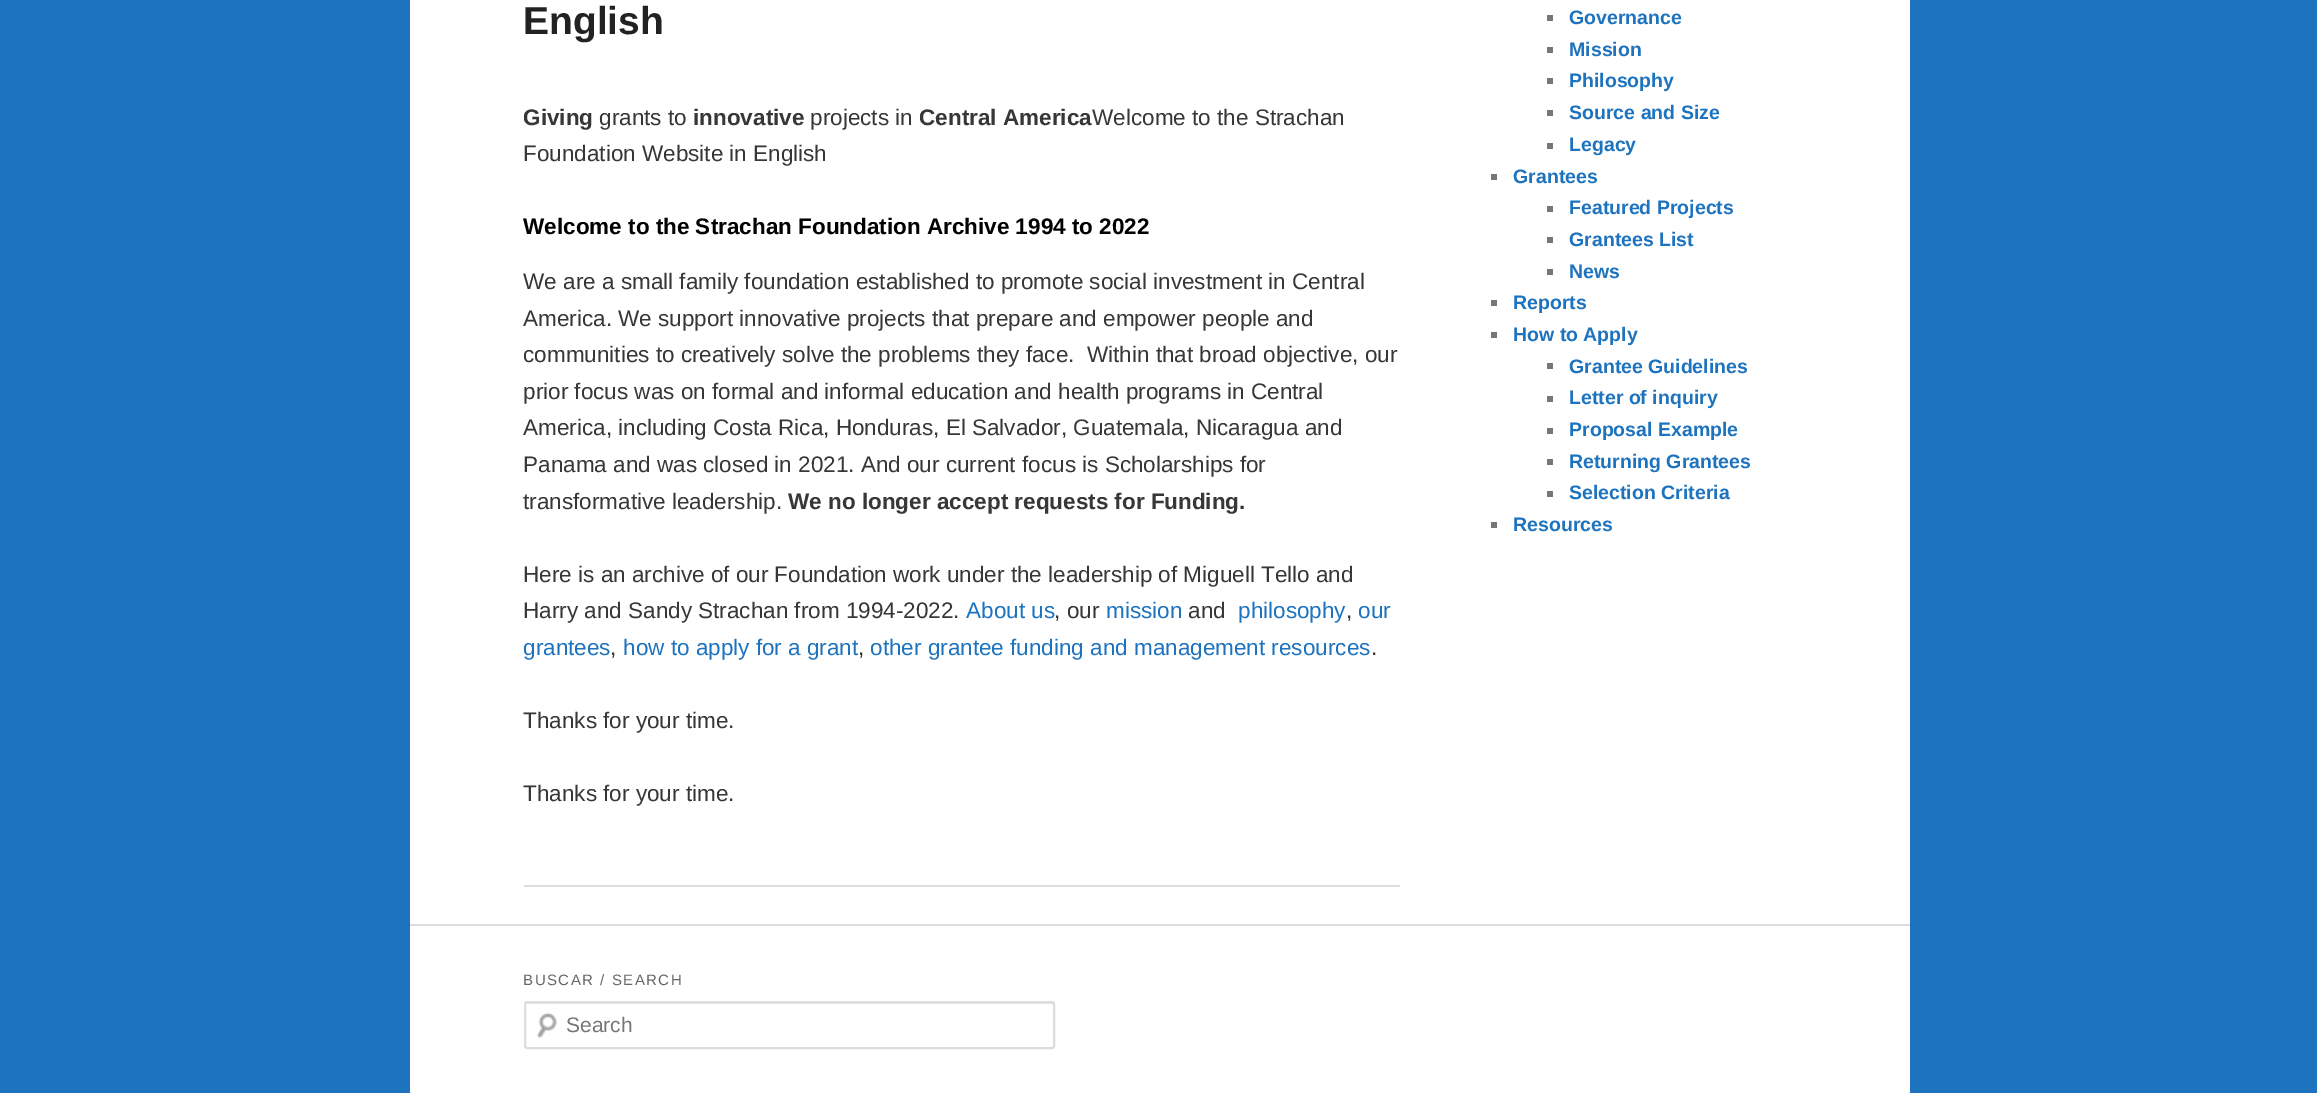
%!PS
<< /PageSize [2317 1093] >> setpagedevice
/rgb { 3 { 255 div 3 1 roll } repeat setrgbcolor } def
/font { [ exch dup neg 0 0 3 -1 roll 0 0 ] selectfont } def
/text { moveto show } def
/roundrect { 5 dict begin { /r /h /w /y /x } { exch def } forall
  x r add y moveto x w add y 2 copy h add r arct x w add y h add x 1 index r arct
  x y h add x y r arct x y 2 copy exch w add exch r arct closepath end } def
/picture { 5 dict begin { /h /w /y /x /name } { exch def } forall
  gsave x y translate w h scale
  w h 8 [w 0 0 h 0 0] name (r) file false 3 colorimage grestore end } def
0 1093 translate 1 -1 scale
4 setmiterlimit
30 115 190 rgb
0 0 2317 1093 rectfill
255 255 255 rgb
410 0 1500 1093 rectfill
221 221 221 rgb
524 885 876 2 rectfill
119 119 119 rgb
1547 15 6 6 rectfill
1547 47 6 6 rectfill
1547 78 6 6 rectfill
1547 110 6 6 rectfill
1547 143 6 6 rectfill
1491 174 6 6 rectfill
1547 206 6 6 rectfill
1547 237 6 6 rectfill
1547 269 6 6 rectfill
1491 300 6 6 rectfill
1491 332 6 6 rectfill
1547 363 6 6 rectfill
1547 396 6 6 rectfill
1547 428 6 6 rectfill
1547 459 6 6 rectfill
1547 491 6 6 rectfill
1491 522 6 6 rectfill
221 221 221 rgb
410 924 1500 2 rectfill
(img_01.rgb) 537 1012 20 27 picture
230 230 230 rgb
526 1004 moveto 526 0 rlineto 1 1 rlineto 0 -2 rlineto -1 -1 rlineto -526 0 rlineto -1 1 -1 2 -1 3 rcurveto closepath fill
221 221 221 rgb
2 setlinewidth
525 1002 529 46 2 roundrect stroke
/LiberationSans-Bold 39 font
34 34 34 rgb
(English) 523 34 text
/LiberationSans-Bold 22.5 font
55 55 55 rgb
(Giving) 523 125 text
/LiberationSans-Regular 22.5 font
(grants to) 599 125 text
/LiberationSans-Bold 22.5 font
(innovative) 693 125 text
/LiberationSans-Regular 22.5 font
(projects in) 810 125 text
/LiberationSans-Bold 22.5 font
(Central America) 919 125 text
/LiberationSans-Regular 22.5 font
(Welcome to the Strachan) 1092 125 text
(Foundation Website in English) 523 161 text
/LiberationSans-Bold 22.5 font
0 0 0 rgb
(Welcome to the Strachan Foundation Archive 1994 to 2022) 523 234 text
/LiberationSans-Regular 22.5 font
55 55 55 rgb
(We are a small family foundation established to promote social investment in Central) 523 289 text
(America. We support innovative projects that prepare and empower people and) 523 326 text
(communities to creatively solve the problems they face.  Within that broad objective, our) 523 362 text
(prior focus was on formal and informal education and health programs in Central) 523 399 text
(America, including Costa Rica, Honduras, El Salvador, Guatemala, Nicaragua and) 523 435 text
(Panama and was closed in 2021. And our current focus is Scholarships for) 523 472 text
(transformative leadership.) 523 509 text
/LiberationSans-Bold 22.5 font
(We no longer accept requests for Funding.) 788 509 text
/LiberationSans-Regular 22.5 font
(Here is an archive of our Foundation work under the leadership of Miguell Tello and) 523 582 text
(Harry and Sandy Strachan from 1994-2022.) 523 618 text
30 115 190 rgb
(About us) 966 618 text
55 55 55 rgb
(, our) 1054 618 text
30 115 190 rgb
(mission) 1106 618 text
55 55 55 rgb
(and) 1188 618 text
30 115 190 rgb
(philosophy) 1238 618 text
55 55 55 rgb
(,) 1346 618 text
30 115 190 rgb
(our) 1358 618 text
(grantees) 523 655 text
55 55 55 rgb
(,) 610 655 text
30 115 190 rgb
(how to apply for a grant) 623 655 text
55 55 55 rgb
(,) 858 655 text
30 115 190 rgb
(other grantee funding and management resources) 870 655 text
55 55 55 rgb
(.) 1371 655 text
(Thanks for your time.) 523 728 text
(Thanks for your time.) 523 801 text
/LiberationSans-Bold 19.5 font
30 115 190 rgb
(Governance) 1569 24 text
(Mission) 1569 56 text
(Philosophy) 1569 87 text
(Source and Size) 1569 119 text
(Legacy) 1569 151 text
(Grantees) 1513 183 text
(Featured Projects) 1569 214 text
(Grantees List) 1569 246 text
(News) 1569 278 text
(Reports) 1513 309 text
(How to Apply) 1513 341 text
(Grantee Guidelines) 1569 373 text
(Letter of inquiry) 1569 404 text
(Proposal Example) 1569 436 text
(Returning Grantees) 1569 468 text
(Selection Criteria) 1569 499 text
(Resources) 1513 531 text
/LiberationSans-Regular 15 font
102 102 102 rgb
523 985 moveto 1.5 0 (BUSCAR / SEARCH) ashow
/LiberationSans-Regular 21 font
117 117 117 rgb
(Search) 566 1032 text
showpage
